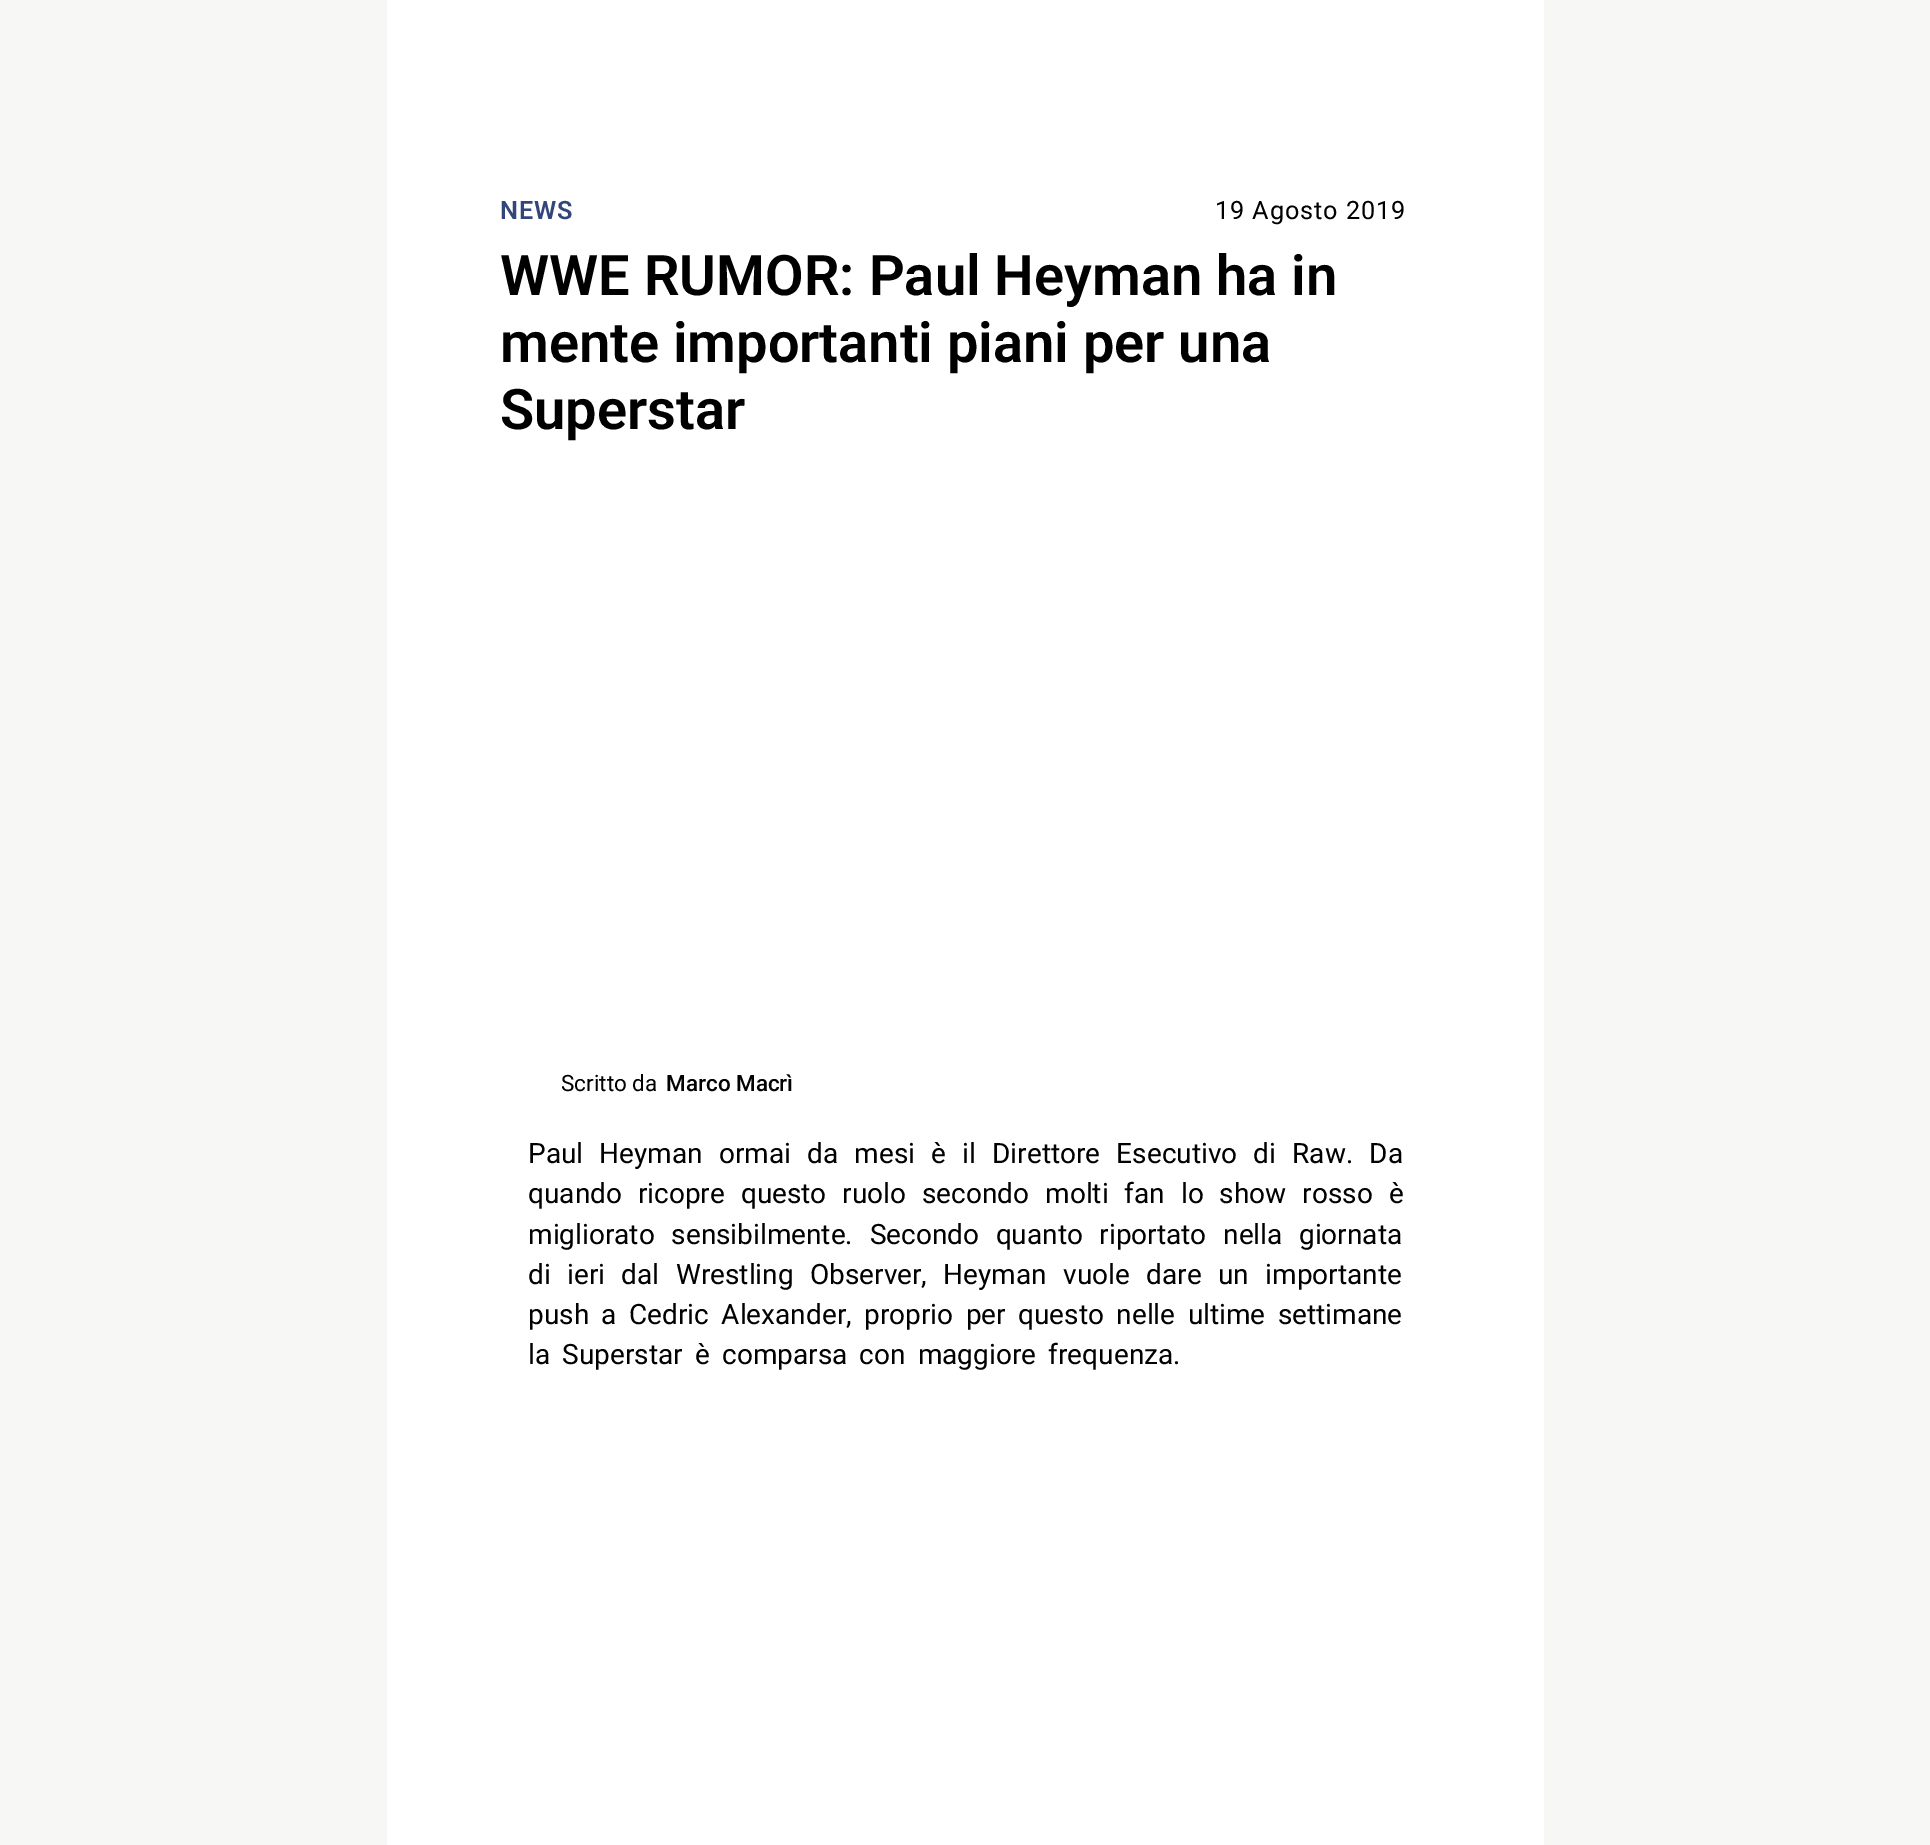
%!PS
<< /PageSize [1930 1845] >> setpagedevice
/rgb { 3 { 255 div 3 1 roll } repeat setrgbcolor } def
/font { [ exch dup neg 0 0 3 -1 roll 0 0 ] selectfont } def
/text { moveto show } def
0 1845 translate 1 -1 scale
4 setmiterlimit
247 247 246 rgb
0 0 1930 1845 rectfill
255 255 255 rgb
387 0 1157 1845 rectfill
/Roboto-SemiBold 25.25 font
51 70 124 rgb
500 219 moveto 0.9 0 (NEWS) ashow
/Roboto-Regular 25.25 font
0 0 0 rgb
1215 219 moveto 0.9 0 (19 Agosto 2019) ashow
/Roboto-SemiBold 56 font
(WWE RUMOR: Paul Heyman ha in) 500 295 text
(mente importanti piani per una) 500 362 text
(Superstar) 500 429 text
/Roboto-Regular 22.5 font
(Scritto da) 561 1091 text
/Roboto-Medium 22.5 font
(Marco Macrì) 666 1091 text
/Roboto-Regular 28 font
528 1163 moveto 9.25 0 32 (Paul Heyman ormai da mesi è il Direttore Esecutivo di Raw. Da) widthshow
528 1203 moveto 9 0 32 (quando ricopre questo ruolo secondo molti fan lo show rosso è) widthshow
528 1244 moveto 9.75 0 32 (migliorato sensibilmente. Secondo quanto riportato nella giornata) widthshow
528 1284 moveto 9.5 0 32 (di ieri dal Wrestling Observer, Heyman vuole dare un importante) widthshow
528 1324 moveto 5.5 0 32 (push a Cedric Alexander, proprio per questo nelle ultime settimane) widthshow
528 1364 moveto 5.25 0 32 (la Superstar è comparsa con maggiore frequenza.) widthshow
showpage
